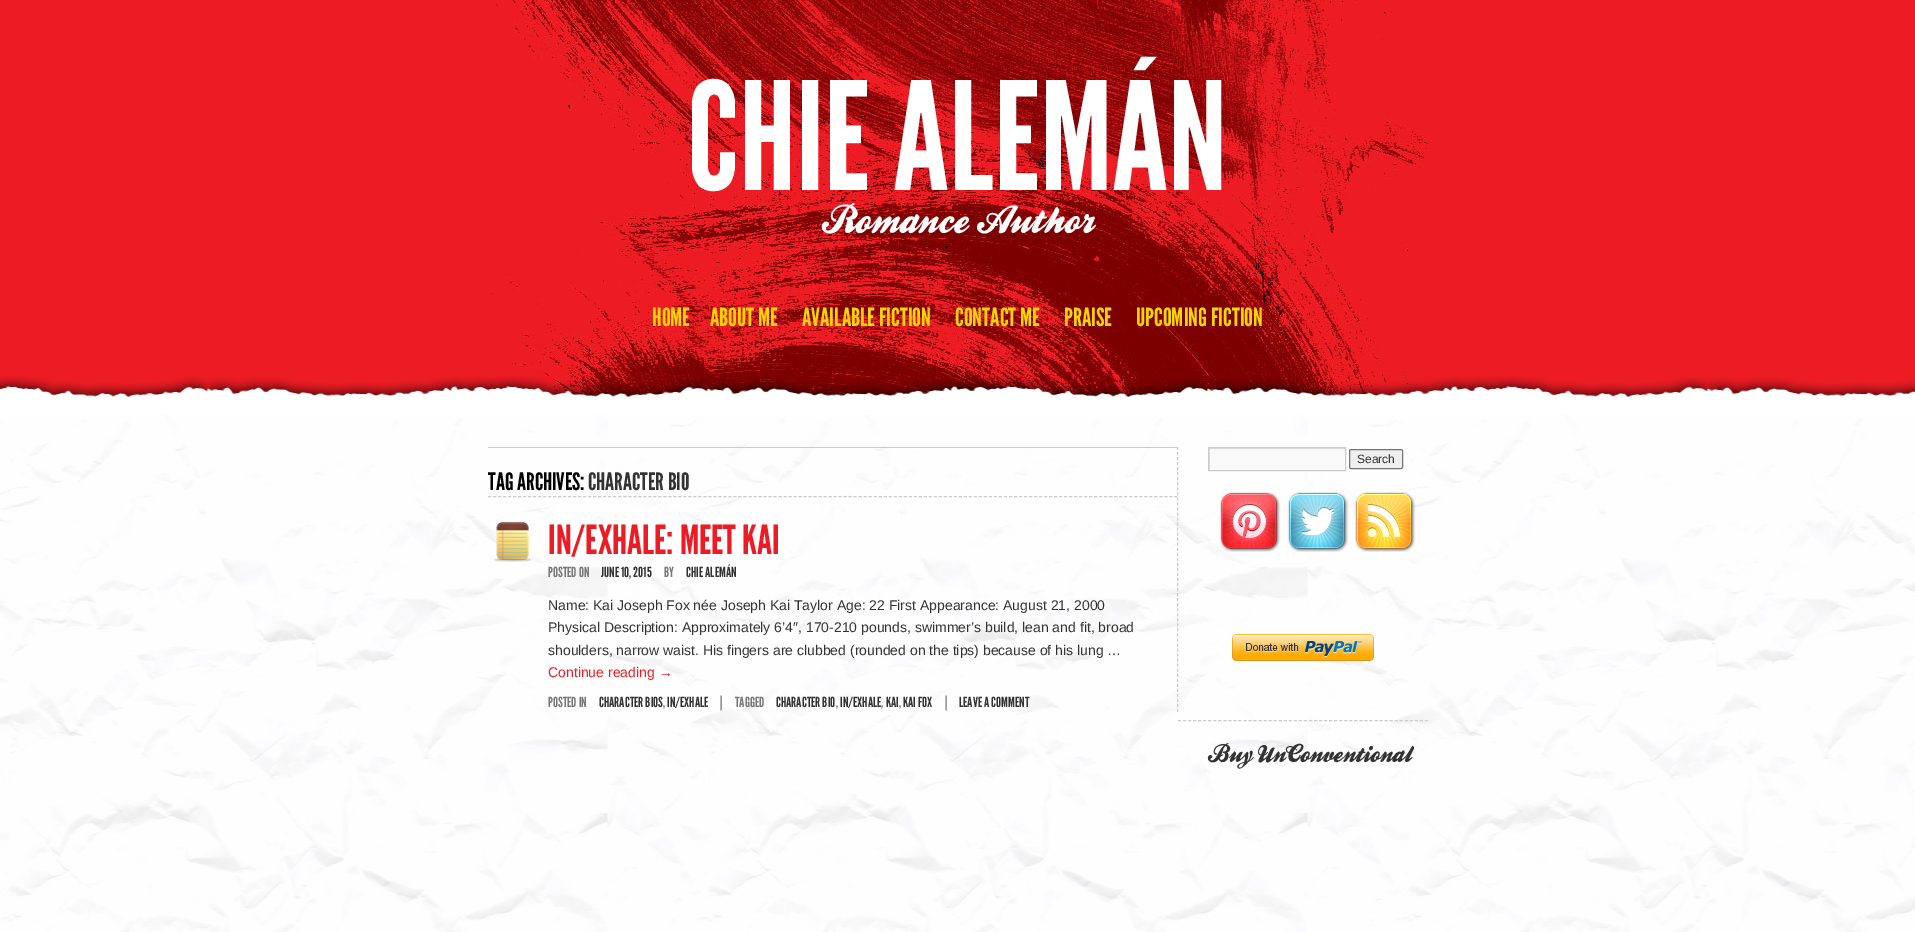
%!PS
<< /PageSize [1915 932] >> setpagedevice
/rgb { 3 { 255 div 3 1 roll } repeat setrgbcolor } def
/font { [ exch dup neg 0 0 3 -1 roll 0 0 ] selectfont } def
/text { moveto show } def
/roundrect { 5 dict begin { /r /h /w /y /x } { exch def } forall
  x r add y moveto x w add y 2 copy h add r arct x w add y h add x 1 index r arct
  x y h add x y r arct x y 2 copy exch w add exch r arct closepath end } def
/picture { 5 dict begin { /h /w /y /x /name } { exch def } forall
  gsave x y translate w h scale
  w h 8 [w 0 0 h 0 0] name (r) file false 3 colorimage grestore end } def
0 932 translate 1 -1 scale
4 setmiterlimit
255 255 255 rgb
0 0 1915 932 rectfill
237 28 36 rgb
0 0 1915 397 rectfill
(img_01.rgb) 490 0 938 397 picture
(img_02.rgb) 0 376 1915 31 picture
(img_03.rgb) 0 415 1915 517 picture
204 204 204 rgb
[3 2.04] 0 setdash
1177.5 447 moveto 0 265 rlineto stroke
488 447 689 1 rectfill
(img_04.rgb) 493 522 38 40 picture
[3 2.01] 0 setdash
488 496.5 moveto 689 0 rlineto stroke
249 249 249 rgb
1210 449 135 21 rectfill
gsave
1209 448 136 22 rectclip
224 224 224 rgb
1110 349 moveto 334 0 rlineto 0 220 rlineto -334 0 rlineto closepath 1210 449 moveto 136 0 rlineto 0 22 rlineto -136 0 rlineto closepath eofill
grestore
204 204 204 rgb
[] 0 setdash
1208.5 447.5 137 23 rectstroke
239 239 239 rgb
1349.5 449.5 53 19 1.5 roundrect gsave fill grestore
118 118 118 rgb
stroke
(img_05.rgb) 1219 492 62 60 picture
(img_06.rgb) 1287 492 62 60 picture
(img_07.rgb) 1354 492 62 60 picture
(img_08.rgb) 1232 634 142 27 picture
204 204 204 rgb
[3 2.04] 0 setdash
1178 720.5 moveto 250 0 rlineto stroke
/LeagueGothic-Regular 150 font
255 255 255 rgb
(CHIE ALEMÁN) 687 190 text
/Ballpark-Regular 40 font
(Romance Author) 822 233 text
/LeagueGothic-Regular 25 font
255 215 0 rgb
(HOME) 652 326 text
(ABOUT ME) 710 326 text
(AVAILABLE FICTION) 802 326 text
(CONTACT ME) 955 326 text
(PRAISE) 1064 326 text
(UPCOMING FICTION) 1136 326 text
gsave
488 407 940 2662 rectclip
/LeagueGothic-Regular 24 font
0 0 0 rgb
(TAG ARCHIVES:) 488 490 text
grestore
/LeagueGothic-Regular 24 font
51 51 51 rgb
(CHARACTER BIO) 588 490 text
/LeagueGothic-Regular 40 font
237 28 36 rgb
(IN/EXHALE: MEET KAI) 548 554 text
/LeagueGothic-Regular 14 font
119 119 119 rgb
(POSTED ON) 548 577 text
51 51 51 rgb
(JUNE 10, 2015) 601 577 text
119 119 119 rgb
(BY) 664 577 text
51 51 51 rgb
(CHIE ALEMÁN) 686 577 text
/LiberationSans-Regular 14 font
(Name: Kai Joseph Fox née Joseph Kai Taylor Age: 22 First Appearance: August 21, 2000) 548 610 text
(Physical Description: Approximately 6’4″, 170-210 pounds, swimmer’s build, lean and fit, broad) 548 632 text
(shoulders, narrow waist. His fingers are clubbed \(rounded on the tips\) because of his lung …) 548 655 text
237 28 36 rgb
(Continue reading →) 548 677 text
/LeagueGothic-Regular 14 font
119 119 119 rgb
(POSTED IN) 548 707 text
51 51 51 rgb
(CHARACTER BIOS) 599 707 text
119 119 119 rgb
(,) 663 707 text
51 51 51 rgb
(IN/EXHALE) 667 707 text
119 119 119 rgb
(|) 720 707 text
(TAGGED) 735 707 text
51 51 51 rgb
(CHARACTER BIO) 776 707 text
119 119 119 rgb
(,) 836 707 text
51 51 51 rgb
(IN/EXHALE) 840 707 text
119 119 119 rgb
(,) 881 707 text
51 51 51 rgb
(KAI) 886 707 text
119 119 119 rgb
(,) 899 707 text
51 51 51 rgb
(KAI FOX) 903 707 text
119 119 119 rgb
(|) 945 707 text
51 51 51 rgb
(LEAVE A COMMENT) 959 707 text
/LiberationSans-Regular 12 font
(Search) 1357 463 text
/Ballpark-Regular 25 font
(Buy UnConventional) 1208 762 text
showpage
